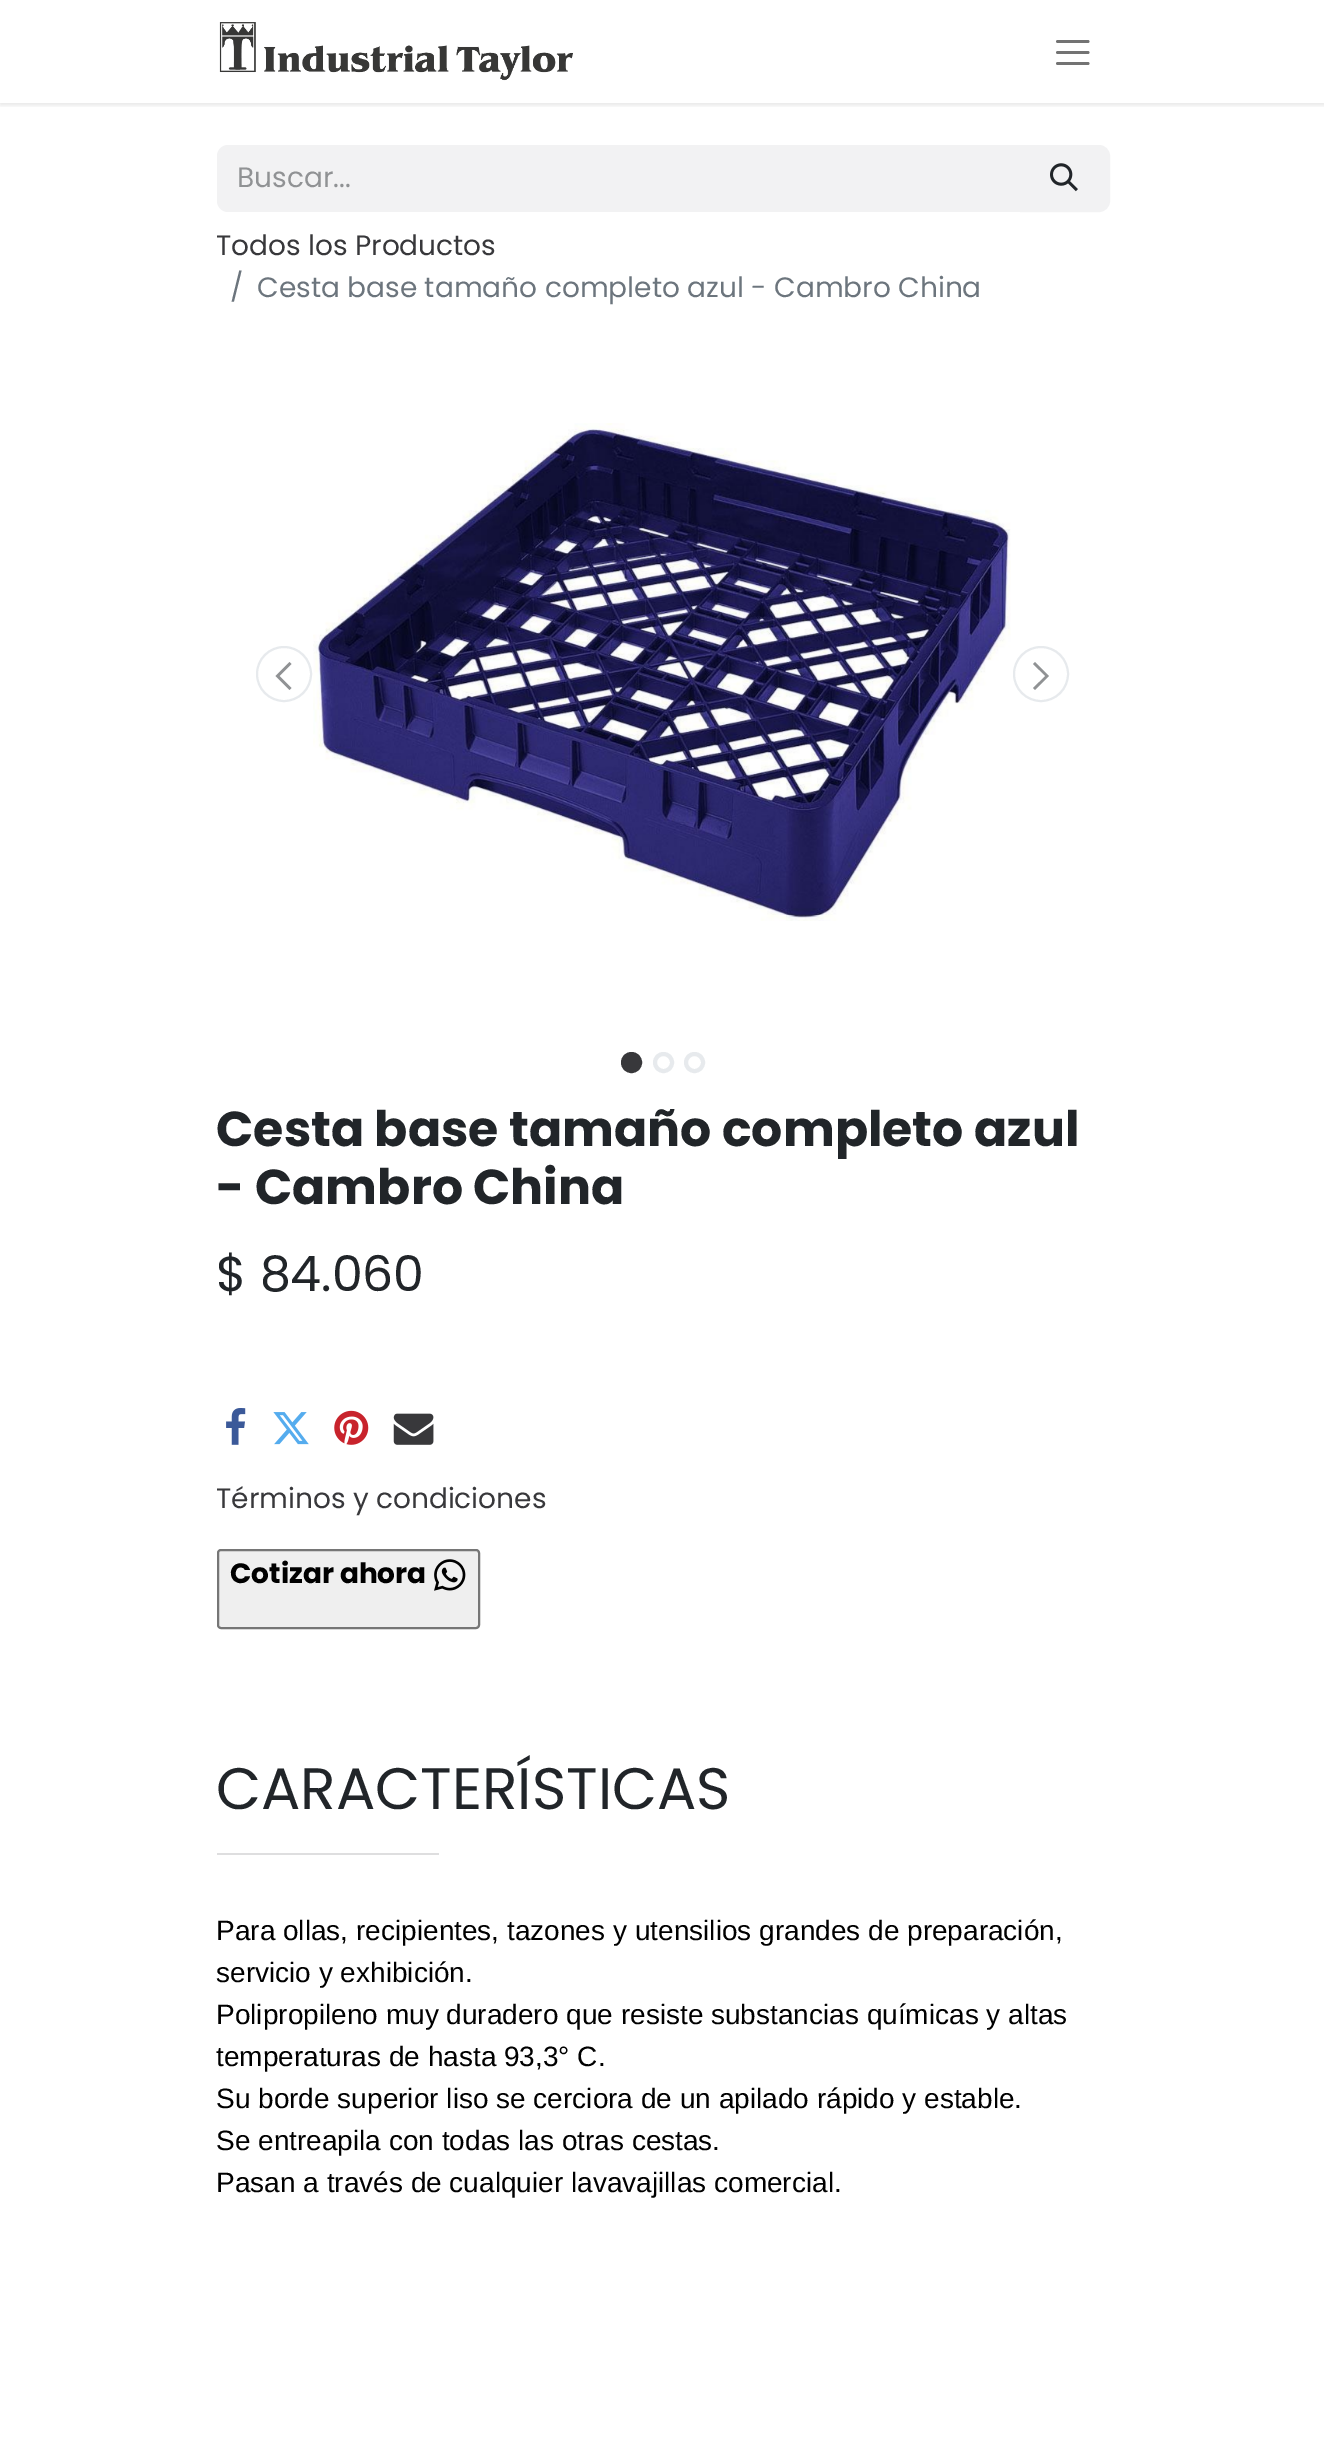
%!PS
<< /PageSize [1324 2444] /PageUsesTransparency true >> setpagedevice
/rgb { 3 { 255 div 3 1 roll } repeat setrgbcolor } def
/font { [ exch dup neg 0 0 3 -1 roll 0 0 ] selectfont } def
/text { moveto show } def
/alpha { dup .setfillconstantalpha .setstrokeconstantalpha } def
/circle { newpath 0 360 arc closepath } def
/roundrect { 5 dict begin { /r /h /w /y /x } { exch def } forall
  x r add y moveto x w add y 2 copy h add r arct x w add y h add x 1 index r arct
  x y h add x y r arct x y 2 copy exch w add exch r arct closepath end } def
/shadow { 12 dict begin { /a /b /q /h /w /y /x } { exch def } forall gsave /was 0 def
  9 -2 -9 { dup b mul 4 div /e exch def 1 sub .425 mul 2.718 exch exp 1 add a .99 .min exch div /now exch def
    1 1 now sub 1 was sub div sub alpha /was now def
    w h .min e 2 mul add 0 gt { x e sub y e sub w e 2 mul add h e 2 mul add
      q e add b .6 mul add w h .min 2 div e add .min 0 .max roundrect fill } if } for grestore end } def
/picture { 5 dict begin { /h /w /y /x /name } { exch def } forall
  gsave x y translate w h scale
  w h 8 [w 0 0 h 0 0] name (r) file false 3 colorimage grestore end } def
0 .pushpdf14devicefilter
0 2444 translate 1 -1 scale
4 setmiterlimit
255 255 255 rgb
0 0 1324 2444 rectfill
gsave
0 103 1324 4 rectclip
0 0 0 rgb
0 2 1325 103 0 2.5 0.1 shadow
grestore
(img_01.rgb) 219 22 354 59 picture
115 115 115 rgb
2.8 setlinewidth
1 setlinecap
1057.5 41.5 moveto 30.5 0 rlineto 1057.5 52.5 moveto 30.5 0 rlineto 1057.5 63.5 moveto 30.5 0 rlineto stroke
242 242 243 rgb
228 145 moveto 794 0 rlineto 0 67 rlineto -794 0 rlineto -6 0 -11 -5 -11 -11 rcurveto 0 -45 rlineto 0 -6 5 -11 11 -11 rcurveto closepath fill
1021 146 moveto 78 0 rlineto 5.5 0 10 4.5 10 10 rcurveto 0 45 rlineto 0 5.5 -4.5 10 -10 10 rcurveto -78 0 rlineto closepath gsave fill grestore
2 setlinewidth
0 setlinecap
stroke
(img_02.rgb) 1050 163 28 29 picture
231 234 237 rgb
284 674 27 circle stroke
144 146 148 rgb
275.5 676 moveto 14 -14 rlineto 2 2 rlineto -12 12 rlineto 12 12 rlineto -2 2 rlineto closepath fill
(img_03.rgb) 313 423 698 498 picture
231 234 237 rgb
1041 674 27 circle stroke
144 146 148 rgb
1049 676 moveto -14 14 rlineto -2 -2 rlineto 12.5 -12 rlineto -12.5 -12 rlineto 2 -2 rlineto closepath fill
56 56 59 rgb
631.5 1062.5 8.5 circle gsave fill grestore
4 setlinewidth
stroke
231 234 237 rgb
663.5 1062.5 8.5 circle stroke
694.5 1062.5 8.5 circle stroke
(img_04.rgb) 226 1408 20 37 picture
(img_05.rgb) 273 1412 36 33 picture
(img_06.rgb) 334 1410 35 35 picture
(img_07.rgb) 393 1413 41 32 picture
239 239 239 rgb
218 1550 261 78 3 roundrect gsave fill grestore
118 118 118 rgb
2 setlinewidth
stroke
(img_08.rgb) 434 1559 32 32 picture
222 222 223 rgb
217 1853 222 2 rectfill
/Poppins-Regular 28 font
144 146 148 rgb
(Buscar...) 237 187 text
56 56 59 rgb
(Todos los Productos) 216 255 text
108 117 125 rgb
(/) 230 297 text
(Cesta base tamaño completo azul - Cambro China) 257 297 text
/Poppins-Bold 49 font
33 37 41 rgb
(Cesta base tamaño completo azul) 216 1146 text
(- Cambro China) 216 1204 text
/Poppins-Regular 49 font
($ 84.060) 216 1291 text
/Poppins-Regular 28 font
56 56 59 rgb
(Términos y condiciones) 216 1508 text
/Poppins-Bold 28 font
0 0 0 rgb
(Cotizar ahora) 230 1583 text
/Poppins-Regular 58.4 font
33 37 41 rgb
(CARACTERÍSTICAS) 216 1809 text
/LiberationSans-Regular 28 font
0 0 0 rgb
(Para ollas, recipientes, tazones y utensilios grandes de preparación,) 216 1940 text
(servicio y exhibición.) 216 1982 text
(Polipropileno muy duradero que resiste substancias químicas y altas) 216 2024 text
(temperaturas de hasta 93,3° C.) 216 2066 text
(Su borde superior liso se cerciora de un apilado rápido y estable.) 216 2108 text
(Se entreapila con todas las otras cestas.) 216 2150 text
(Pasan a través de cualquier lavavajillas comercial.) 216 2192 text
.poppdf14devicefilter showpage
